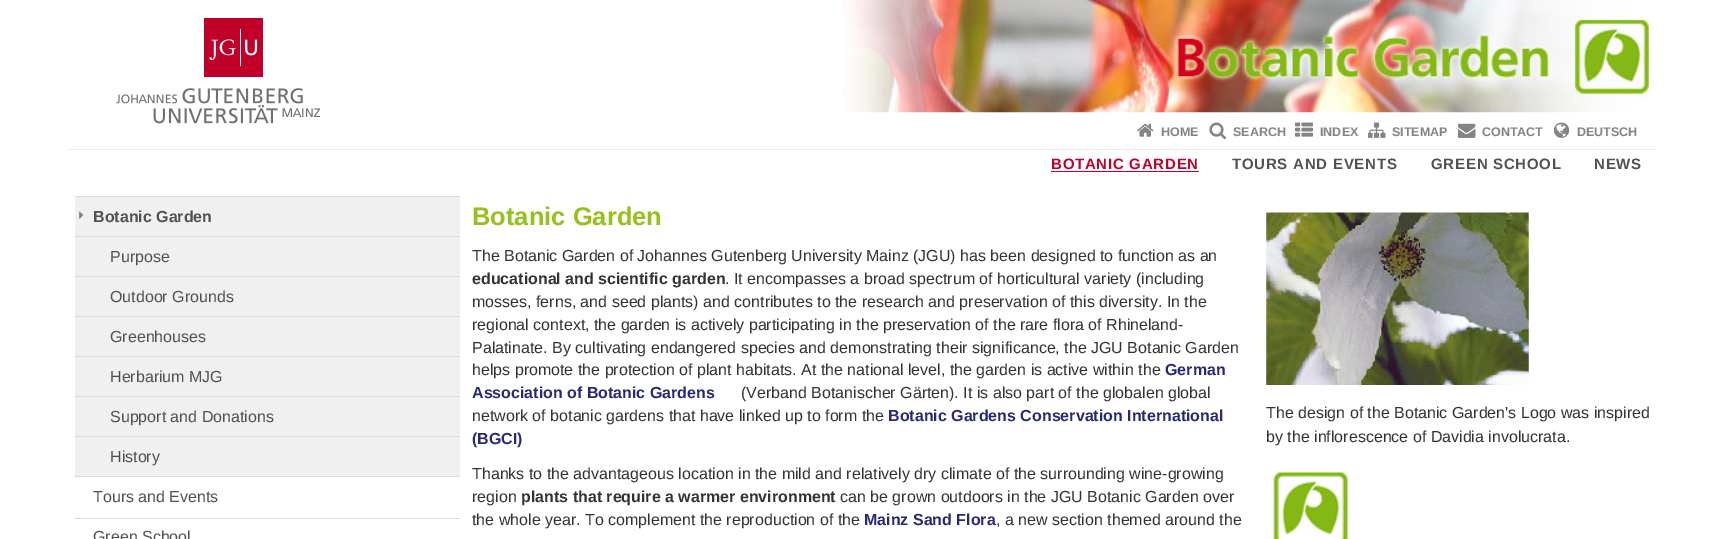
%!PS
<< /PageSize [1725 539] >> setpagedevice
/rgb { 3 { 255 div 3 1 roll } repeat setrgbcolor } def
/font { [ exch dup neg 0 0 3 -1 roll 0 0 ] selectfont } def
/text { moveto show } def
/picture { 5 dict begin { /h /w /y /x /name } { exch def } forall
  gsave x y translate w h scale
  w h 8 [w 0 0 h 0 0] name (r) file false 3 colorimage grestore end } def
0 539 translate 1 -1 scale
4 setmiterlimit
255 255 255 rgb
0 0 1725 539 rectfill
(img_01.rgb) 116 18 204 106 picture
(img_02.rgb) 842 0 809 113 picture
(img_03.rgb) 1137 123 17 14 picture
(img_04.rgb) 1209 122 17 18 picture
(img_05.rgb) 1295 122 18 15 picture
(img_06.rgb) 1368 122 18 16 picture
(img_07.rgb) 1458 123 18 15 picture
(img_08.rgb) 1553 122 17 16 picture
235 235 235 rgb
69 149 1587 1 rectfill
193 0 42 rgb
1051 171 148 1 rectfill
240 240 240 rgb
75 197 385 279 rectfill
218 218 218 rgb
75 196 385 1 rectfill
(img_09.rgb) 79 211 5 8 picture
75 236 385 1 rectfill
75 276 385 1 rectfill
75 316 385 1 rectfill
75 356 385 1 rectfill
75 396 385 1 rectfill
75 436 385 1 rectfill
75 476 385 1 rectfill
75 518 385 1 rectfill
(img_10.rgb) 1266 212 263 173 picture
(img_11.rgb) 1267 472 81 67 picture
/LiberationSans-Bold 12.5 font
132 132 132 rgb
(HOME) 1161 136 text
(SEARCH) 1233 136 text
(INDEX) 1320 136 text
(SITEMAP) 1392 136 text
(CONTACT) 1482 136 text
(DEUTSCH) 1577 136 text
/LiberationSans-Bold 15 font
193 0 42 rgb
1051 169 moveto 0.75 0 (BOTANIC GARDEN) ashow
81 81 81 rgb
1232 169 moveto 0.75 0 (TOURS AND EVENTS) ashow
1431 169 moveto 0.75 0 (GREEN SCHOOL) ashow
1594 169 moveto 0.75 0 (NEWS) ashow
/LiberationSans-Bold 16 font
(Botanic Garden) 93 222 text
/LiberationSans-Regular 16 font
(Purpose) 110 262 text
(Outdoor Grounds) 110 302 text
(Greenhouses) 110 342 text
(Herbarium MJG) 110 382 text
(Support and Donations) 110 422 text
(History) 110 462 text
(Tours and Events) 93 502 text
(Green School) 93 542 text
/LiberationSans-Bold 25.5 font
149 193 27 rgb
(Botanic Garden) 472 225 text
/LiberationSans-Regular 16 font
51 51 51 rgb
(The Botanic Garden of Johannes Gutenberg University Mainz \(JGU\) has been designed to function as an) 472 261 text
/LiberationSans-Bold 16 font
(educational and scientific garden) 472 284 text
/LiberationSans-Regular 16 font
(. It encompasses a broad spectrum of horticultural variety \(including) 725 284 text
(mosses, ferns, and seed plants\) and contributes to the research and preservation of this diversity. In the) 472 307 text
(regional context, the garden is actively participating in the preservation of the rare flora of Rhineland-) 472 330 text
(Palatinate. By cultivating endangered species and demonstrating their significance, the JGU Botanic Garden) 472 353 text
(helps promote the protection of plant habitats. At the national level, the garden is active within the) 472 375 text
/LiberationSans-Bold 16 font
40 40 121 rgb
(German) 1165 375 text
(Association of Botanic Gardens) 472 398 text
/LiberationSans-Regular 16 font
51 51 51 rgb
(\(Verband Botanischer Gärten\). It is also part of the globalen global) 741 398 text
(network of botanic gardens that have linked up to form the) 472 421 text
/LiberationSans-Bold 16 font
40 40 121 rgb
(Botanic Gardens Conservation International) 888 421 text
(\(BGCI\)) 472 444 text
/LiberationSans-Regular 16 font
51 51 51 rgb
(Thanks to the advantageous location in the mild and relatively dry climate of the surrounding wine-growing) 472 479 text
(region) 472 502 text
/LiberationSans-Bold 16 font
(plants that require a warmer environment) 521 502 text
/LiberationSans-Regular 16 font
(can be grown outdoors in the JGU Botanic Garden over) 840 502 text
(the whole year. To complement the reproduction of the) 472 525 text
/LiberationSans-Bold 16 font
40 40 121 rgb
(Mainz Sand Flora) 864 525 text
/LiberationSans-Regular 16 font
51 51 51 rgb
(, a new section themed around the) 996 525 text
(The design of the Botanic Garden's Logo was inspired) 1266 418 text
(by the inflorescence of Davidia involucrata.) 1266 442 text
showpage
